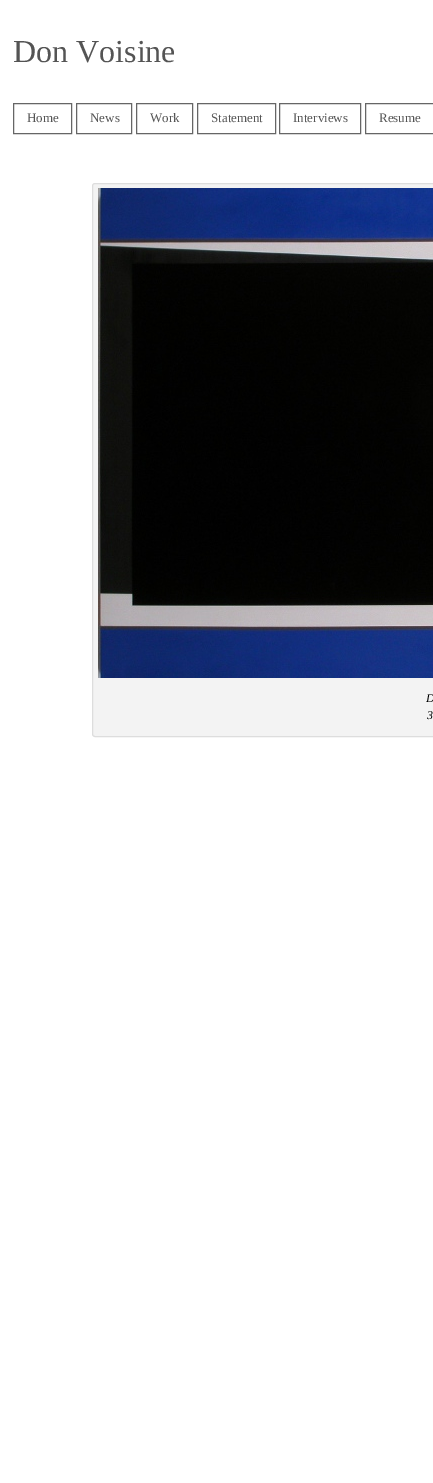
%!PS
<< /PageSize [433 1483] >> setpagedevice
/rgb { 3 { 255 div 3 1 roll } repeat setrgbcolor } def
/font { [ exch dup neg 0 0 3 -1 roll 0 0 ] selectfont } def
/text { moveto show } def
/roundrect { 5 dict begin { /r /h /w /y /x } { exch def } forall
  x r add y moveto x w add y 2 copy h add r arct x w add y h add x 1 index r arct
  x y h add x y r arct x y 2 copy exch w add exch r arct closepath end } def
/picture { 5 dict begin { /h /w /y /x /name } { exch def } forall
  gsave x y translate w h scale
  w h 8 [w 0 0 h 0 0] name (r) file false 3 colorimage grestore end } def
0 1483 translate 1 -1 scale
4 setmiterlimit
255 255 255 rgb
0 0 433 1483 rectfill
102 102 102 rgb
13.5 103.5 58 30 rectstroke
76.5 103.5 55 30 rectstroke
136.5 103.5 56 30 rectstroke
197.5 103.5 78 30 rectstroke
279.5 103.5 81 30 rectstroke
365.5 103.5 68 30 rectstroke
243 243 243 rgb
92.5 183.5 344 553 2.5 roundrect gsave fill grestore
221 221 221 rgb
stroke
(img_01.rgb) 98 188 335 490 picture
/LiberationSerif-Regular 32 font
84 84 84 rgb
(Don Voisine) 13 62 text
/LiberationSerif-Regular 13 font
(Home) 27 122 text
(News) 90 122 text
(Work) 150 122 text
(Statement) 211 122 text
(Interviews) 293 122 text
(Resume) 379 122 text
/LiberationSerif-Italic 12 font
0 0 0 rgb
(D) 426 702 text
(3) 427 719 text
showpage
